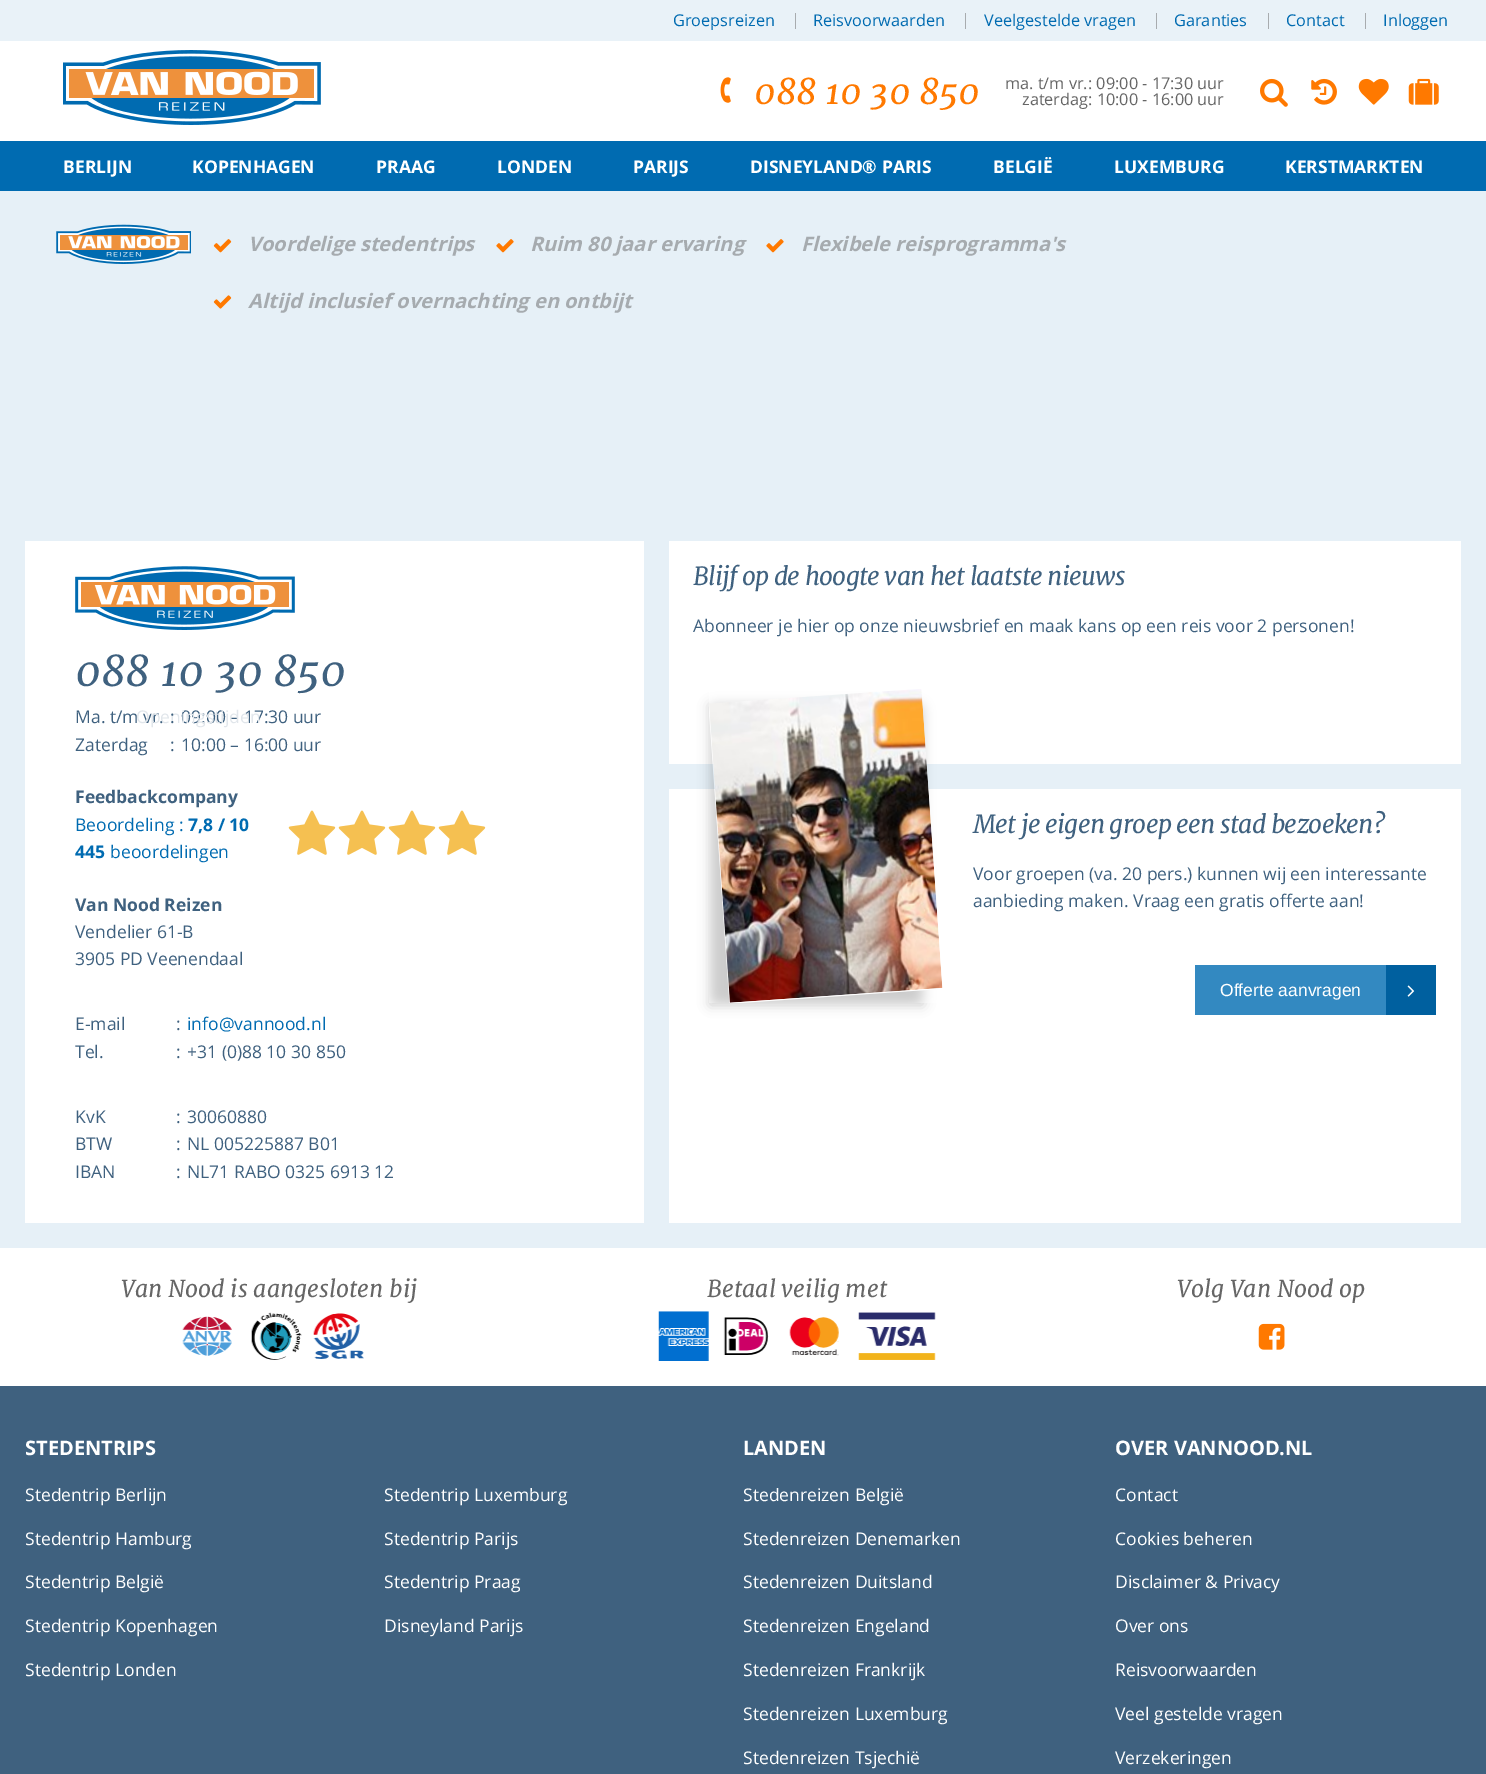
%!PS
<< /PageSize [1486 1774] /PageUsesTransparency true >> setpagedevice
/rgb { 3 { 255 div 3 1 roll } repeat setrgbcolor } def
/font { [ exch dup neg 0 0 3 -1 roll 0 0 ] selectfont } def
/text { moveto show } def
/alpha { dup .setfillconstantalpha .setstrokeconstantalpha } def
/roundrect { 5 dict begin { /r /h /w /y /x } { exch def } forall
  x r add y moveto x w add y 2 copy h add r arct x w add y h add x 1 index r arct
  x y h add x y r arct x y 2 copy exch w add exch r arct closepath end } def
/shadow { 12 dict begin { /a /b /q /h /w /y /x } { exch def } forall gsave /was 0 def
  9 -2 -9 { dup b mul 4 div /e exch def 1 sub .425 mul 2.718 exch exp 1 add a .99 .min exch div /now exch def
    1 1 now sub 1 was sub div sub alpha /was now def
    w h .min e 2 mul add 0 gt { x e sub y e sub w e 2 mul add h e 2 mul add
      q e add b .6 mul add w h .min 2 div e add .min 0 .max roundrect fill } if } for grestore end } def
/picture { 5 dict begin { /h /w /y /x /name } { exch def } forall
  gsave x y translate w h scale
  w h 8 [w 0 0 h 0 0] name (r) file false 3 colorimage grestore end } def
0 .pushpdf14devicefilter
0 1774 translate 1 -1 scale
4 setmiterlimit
230 240 247 rgb
0 0 1486 1774 rectfill
255 255 255 rgb
0 41 1486 100 rectfill
233 242 248 rgb
0 0 1486 41 rectfill
168 172 175 rgb
795 13 1 16 rectfill
965 13 1 16 rectfill
1156 13 1 16 rectfill
1268 13 1 16 rectfill
1365 13 1 16 rectfill
(img_01.rgb) 63 50 258 75 picture
(img_02.rgb) 720 77 11 26 picture
(img_03.rgb) 1260 78 28 29 picture
(img_04.rgb) 1311 78 26 27 picture
(img_05.rgb) 1358 78 31 27 picture
(img_06.rgb) 1408 78 31 27 picture
0 107 177 rgb
0 141 1486 50 rectfill
(img_07.rgb) 56 224 135 40 picture
(img_08.rgb) 213 239 19 14 picture
(img_09.rgb) 496 239 18 14 picture
(img_09.rgb) 766 239 18 14 picture
(img_10.rgb) 213 295 19 14 picture
255 255 255 rgb
25 541 619 682 rectfill
(img_11.rgb) 75 566 220 64 picture
(img_12.rgb) 288 810 198 45 picture
669 541 792 223 rectfill
669 789 792 434 rectfill
0 0 0 rgb
710 705 213 300 0 6 0.2 shadow
(img_13.rgb) 709 689 234 314 picture
51 137 193 rgb
1195 965 191 50 rectfill
0 96 159 rgb
1386 965 50 50 rectfill
(img_14.rgb) 1407 985 8 12 picture
63 97 127 rgb
0 1386 1486 388 rectfill
255 255 255 rgb
0 1248 1486 138 rectfill
(img_15.rgb) 182 1316 50 40 picture
(img_16.rgb) 251 1312 51 48 picture
(img_17.rgb) 313 1313 51 46 picture
(img_18.rgb) 658 1311 51 50 picture
(img_19.rgb) 723 1317 46 38 picture
(img_20.rgb) 789 1317 50 39 picture
(img_21.rgb) 858 1312 78 48 picture
(img_22.rgb) 1258 1323 27 27 picture
/OpenSans-Regular 16.25 font
0 107 177 rgb
(Groepsreizen) 673 26 text
(Reisvoorwaarden) 813 26 text
(Veelgestelde vragen) 984 26 text
(Garanties) 1174 26 text
(Contact) 1286 26 text
(Inloggen) 1383 26 text
/Merriweather-Italic 35 font
255 121 0 rgb
(088 10 30 850) 754 104 text
/OpenSans-Regular 16.25 font
102 102 102 rgb
(ma. t/m vr.: 09:00 - 17:30 uur) 1005 89 text
(zaterdag: 10:00 - 16:00 uur) 1022 105 text
/OpenSans-Bold 17.5 font
255 255 255 rgb
(BERLIJN) 63 173 text
(KOPENHAGEN) 192 173 text
(PRAAG) 376 173 text
(LONDEN) 497 173 text
(PARIJS) 633 173 text
(DISNEYLAND® PARIS) 750 173 text
(BELGIË) 993 173 text
(LUXEMBURG) 1114 173 text
(KERSTMARKTEN) 1285 173 text
/OpenSans-BoldItalic 20 font
166 171 175 rgb
(Voordelige stedentrips) 248 251 text
(Ruim 80 jaar ervaring) 530 251 text
(Flexibele reisprogramma's) 801 251 text
(Altijd inclusief overnachting en ontbijt) 248 308 text
/Merriweather-Italic 42 font
63 97 127 rgb
(088 10 30 850) 75 686 text
/OpenSans-Regular 17.5 font
(Ma. t/m vr.) 75 723 text
(09:00 – 17:30 uur) 181 723 text
225 230 235 rgb
(Openingstijden) 136 723 text
63 97 127 rgb
(:) 170 723 text
(Zaterdag) 75 751 text
(:) 170 751 text
(10:00 – 16:00 uur) 181 751 text
/OpenSans-Bold 17.5 font
(Feedbackcompany) 75 803 text
/OpenSans-Regular 17.5 font
0 107 177 rgb
(Beoordeling :) 75 831 text
/OpenSans-Bold 17.5 font
(7,8 / 10) 188 831 text
(445) 75 858 text
/OpenSans-Regular 17.5 font
(beoordelingen) 110 858 text
/OpenSans-Bold 17.5 font
63 97 127 rgb
(Van Nood Reizen) 75 911 text
/OpenSans-Regular 17.5 font
(Vendelier 61-B) 75 938 text
(3905 PD Veenendaal) 75 965 text
(E-mail) 75 1030 text
(:) 176 1030 text
0 107 177 rgb
(info@vannood.nl) 187 1030 text
63 97 127 rgb
(Tel.) 75 1058 text
(:) 176 1058 text
(+31 \(0\)88 10 30 850) 187 1058 text
(KvK) 75 1123 text
(:) 176 1123 text
(30060880) 187 1123 text
(BTW) 75 1150 text
(:) 176 1150 text
(NL 005225887 B01) 187 1150 text
(IBAN) 75 1178 text
(:) 176 1178 text
(NL71 RABO 0325 6913 12) 187 1178 text
/Merriweather-Italic 25 font
693 585 moveto -0.75 0 (Blijf op de hoogte van het laatste nieuws) ashow
/OpenSans-Regular 17.5 font
(Abonneer je hier op onze nieuwsbrief en maak kans op een reis voor 2 personen!) 693 632 text
/Merriweather-Italic 25 font
973 833 moveto -0.75 0 (Met je eigen groep een stad bezoeken?) ashow
/OpenSans-Regular 17.5 font
(Voor groepen \(va. 20 pers.\) kunnen wij een interessante) 973 880 text
(aanbieding maken. Vraag een gratis offerte aan!) 973 907 text
/LiberationSans-Regular 17.5 font
255 255 255 rgb
(Offerte aanvragen) 1220 996 text
/Merriweather-Italic 23.3 font
102 102 102 rgb
(Van Nood is aangesloten bij) 121 1297 text
(Betaal veilig met) 707 1297 text
(Volg Van Nood op) 1177 1297 text
/OpenSans-Bold 20 font
255 255 255 rgb
(STEDENTRIPS) 25 1455 text
gsave
25 1488 143 21 rectclip
/OpenSans-Regular 17.5 font
(Stedentrip Berlijn) 25 1501 text
grestore
gsave
384 1488 184 21 rectclip
/OpenSans-Regular 17.5 font
(Stedentrip Luxemburg) 384 1501 text
grestore
/OpenSans-Regular 17.5 font
(Stedentrip Hamburg) 25 1545 text
(Stedentrip Parijs) 384 1545 text
(Stedentrip België) 25 1588 text
(Stedentrip Praag) 384 1588 text
(Stedentrip Kopenhagen) 25 1632 text
(Disneyland Parijs) 384 1632 text
(Stedentrip Londen) 25 1676 text
/OpenSans-Bold 20 font
(LANDEN) 743 1455 text
gsave
744 1488 160 21 rectclip
/OpenSans-Regular 17.5 font
(Stedenreizen België) 743 1501 text
grestore
/OpenSans-Regular 17.5 font
(Stedenreizen Denemarken) 743 1545 text
(Stedenreizen Duitsland) 743 1588 text
(Stedenreizen Engeland) 743 1632 text
(Stedenreizen Frankrijk) 743 1676 text
(Stedenreizen Luxemburg) 743 1720 text
(Stedenreizen Tsjechië) 743 1764 text
/OpenSans-Bold 20 font
(OVER VANNOOD.NL) 1115 1455 text
/OpenSans-Regular 17.5 font
(Contact) 1115 1501 text
(Cookies beheren) 1115 1545 text
(Disclaimer & Privacy) 1115 1588 text
(Over ons) 1115 1632 text
(Reisvoorwaarden) 1115 1676 text
(Veel gestelde vragen) 1115 1720 text
(Verzekeringen) 1115 1764 text
.poppdf14devicefilter showpage
